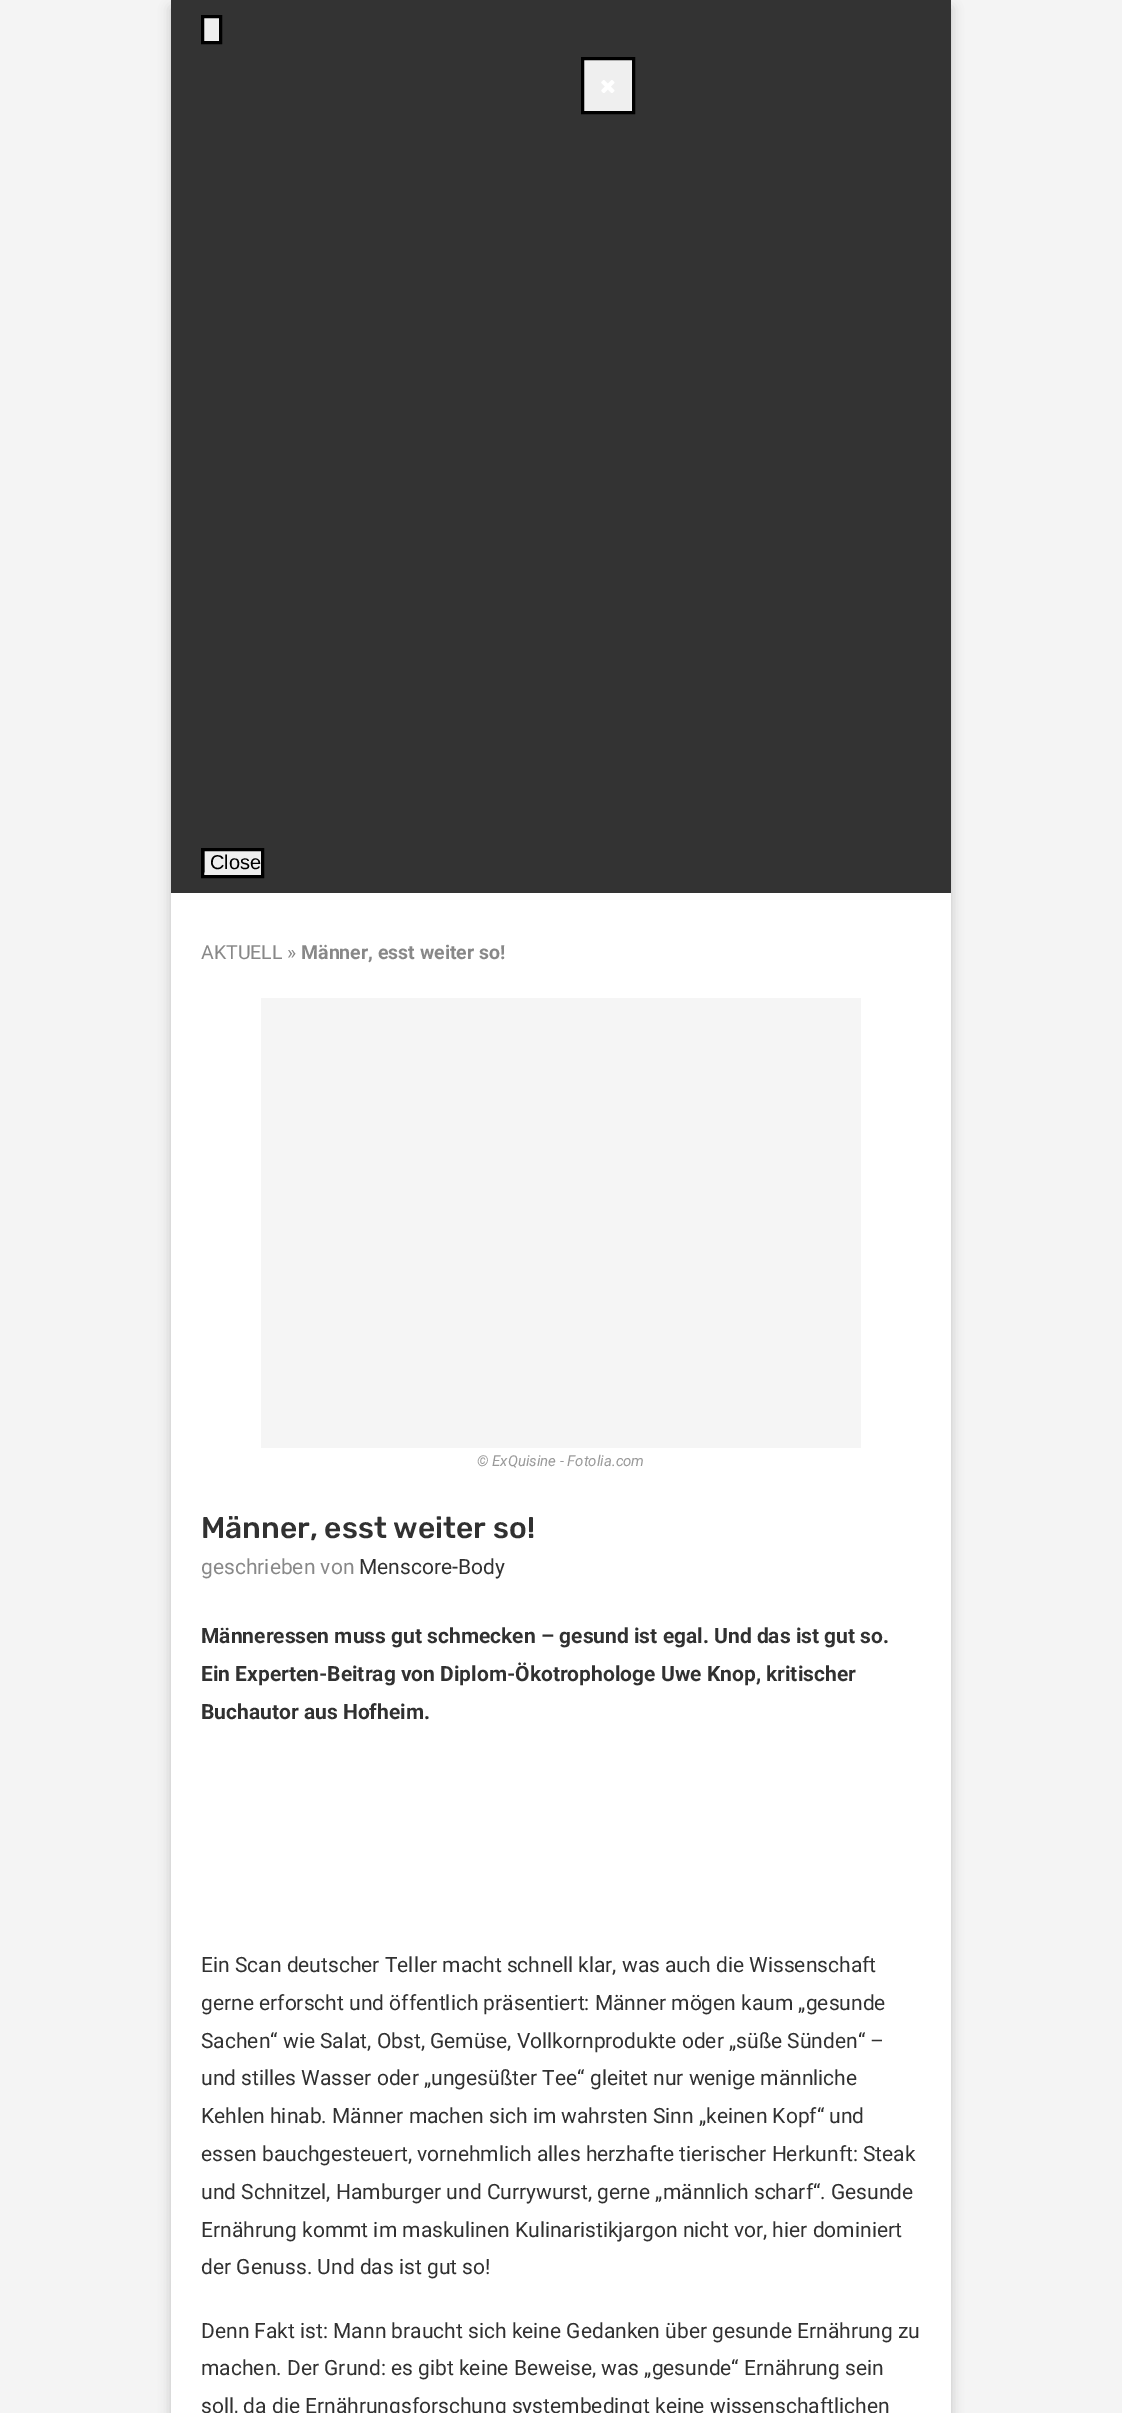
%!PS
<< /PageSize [1122 2413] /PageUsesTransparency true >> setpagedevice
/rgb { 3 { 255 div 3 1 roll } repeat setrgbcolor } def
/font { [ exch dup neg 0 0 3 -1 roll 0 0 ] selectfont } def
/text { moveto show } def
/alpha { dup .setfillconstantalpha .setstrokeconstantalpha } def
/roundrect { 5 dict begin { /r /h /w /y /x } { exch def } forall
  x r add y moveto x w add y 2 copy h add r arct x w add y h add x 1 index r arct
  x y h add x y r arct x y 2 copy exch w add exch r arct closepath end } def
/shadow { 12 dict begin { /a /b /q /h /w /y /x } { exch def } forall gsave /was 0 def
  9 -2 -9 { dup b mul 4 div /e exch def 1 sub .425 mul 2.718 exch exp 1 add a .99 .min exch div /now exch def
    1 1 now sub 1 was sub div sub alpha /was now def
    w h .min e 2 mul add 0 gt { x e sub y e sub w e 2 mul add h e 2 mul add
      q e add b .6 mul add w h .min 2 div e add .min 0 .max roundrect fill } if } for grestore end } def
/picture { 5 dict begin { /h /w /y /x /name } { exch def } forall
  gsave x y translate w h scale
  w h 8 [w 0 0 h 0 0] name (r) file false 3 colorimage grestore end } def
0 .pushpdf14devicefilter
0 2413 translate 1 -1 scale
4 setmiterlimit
244 244 244 rgb
0 0 1122 2413 rectfill
0 0 0 rgb
171 8 780 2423 0 6 0.2 shadow
255 255 255 rgb
171 893 780 1520 rectfill
51 51 51 rgb
171 0 780 893 rectfill
239 239 239 rgb
202.5 16.5 moveto 18 0 rlineto 0 26 rlineto -18 0 rlineto closepath gsave fill grestore
0 0 0 rgb
3 setlinewidth
stroke
239 239 239 rgb
582.5 58.5 moveto 51 0 rlineto 0 54 rlineto -51 0 rlineto closepath gsave fill grestore
0 0 0 rgb
stroke
(img_01.rgb) 601 80 14 13 picture
239 239 239 rgb
202.5 849.5 moveto 60 0 rlineto 0 27 rlineto -60 0 rlineto closepath gsave fill grestore
0 0 0 rgb
stroke
204.5 850.5 moveto 0 22 rlineto -1 0 rlineto 0 -18.5 rlineto -1.5 -1.5 rlineto closepath fill
245 245 245 rgb
261 998 600 450 rectfill
/LiberationSans-Regular 20 font
0 0 0 rgb
(Close) 210 869 text
/Roboto-Regular 19.5 font
136 136 136 rgb
(AKTUELL ») 201 959 text
/Roboto-Bold 19.5 font
(Männer, esst weiter so!) 301 959 text
/Roboto-Italic 15 font
153 153 153 rgb
(© ExQuisine - Fotolia.com) 477 1466 text
/Rubik-Medium 30 font
49 49 49 rgb
(Männer, esst weiter so!) 201 1538 text
/Roboto-Regular 21 font
136 136 136 rgb
(geschrieben von) 201 1574 text
49 49 49 rgb
(Menscore-Body) 359 1574 text
/Roboto-Bold 21 font
(Männeressen muss gut schmecken – gesund ist egal. Und das ist gut so.) 201 1643 text
(Ein Experten-Beitrag von Diplom-Ökotrophologe) 201 1681 text
(Uwe Knop, kritischer) 661 1681 text
(Buchautor aus Hofheim) 201 1719 text
(.) 424 1719 text
/Roboto-Regular 21 font
(Ein Scan deutscher Teller macht schnell klar, was auch die Wissenschaft) 201 1972 text
(gerne erforscht und öffentlich präsentiert: Männer mögen kaum „gesunde) 201 2010 text
(Sachen“ wie Salat, Obst, Gemüse, Vollkornprodukte oder „süße Sünden“ –) 201 2048 text
(und stilles Wasser oder „ungesüßter Tee“ gleitet nur wenige männliche) 201 2085 text
(Kehlen hinab. Männer machen sich im wahrsten Sinn „keinen Kopf“ und) 201 2123 text
(essen bauchgesteuert, vornehmlich alles herzhafte tierischer Herkunft: Steak) 201 2161 text
(und Schnitzel, Hamburger und Currywurst, gerne „männlich scharf“. Gesunde) 201 2199 text
(Ernährung kommt im maskulinen Kulinaristikjargon nicht vor, hier dominiert) 201 2237 text
(der Genuss. Und das ist gut so!) 201 2274 text
(Denn Fakt ist: Mann braucht sich keine Gedanken über gesunde Ernährung zu) 201 2338 text
(machen. Der Grund: es gibt keine Beweise, was „gesunde“ Ernährung sein) 201 2375 text
(soll, da die Ernährungsforschung systembedingt keine wissenschaftlichen) 201 2413 text
.poppdf14devicefilter showpage
